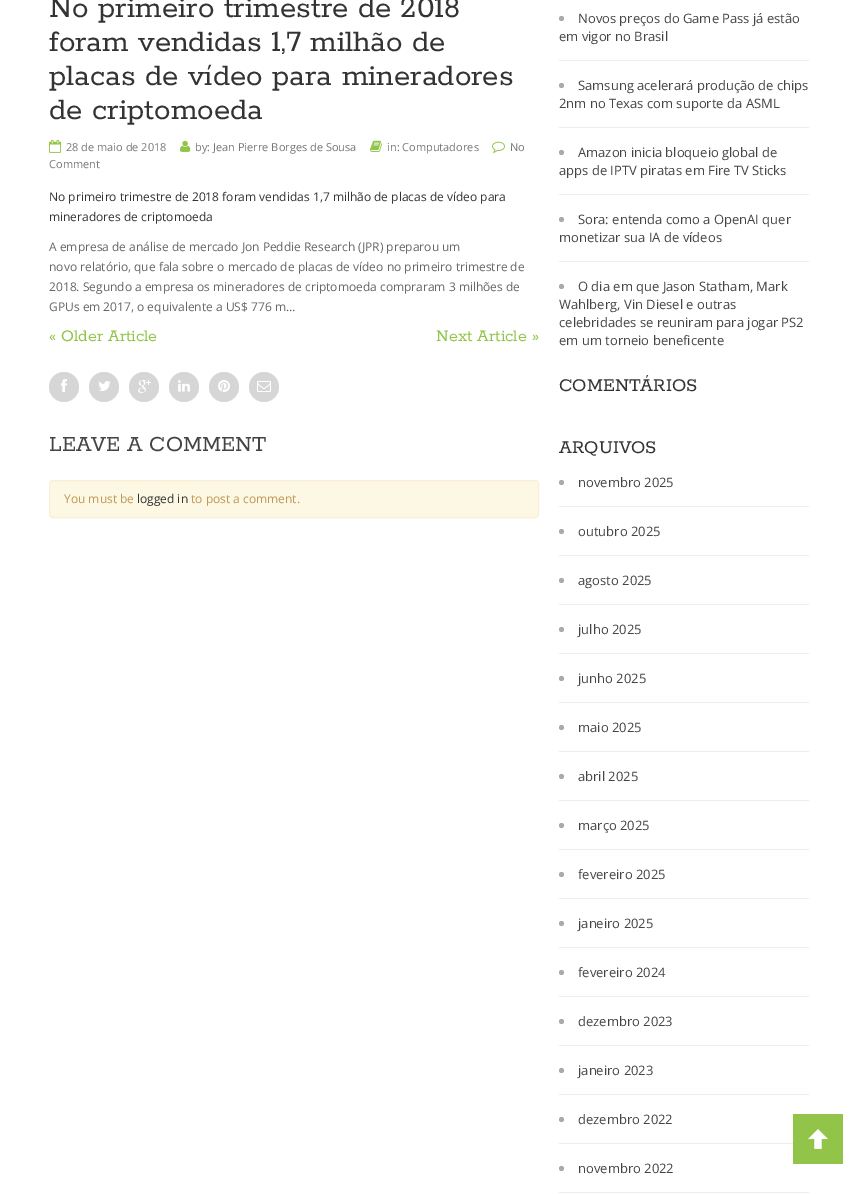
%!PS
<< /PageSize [858 1194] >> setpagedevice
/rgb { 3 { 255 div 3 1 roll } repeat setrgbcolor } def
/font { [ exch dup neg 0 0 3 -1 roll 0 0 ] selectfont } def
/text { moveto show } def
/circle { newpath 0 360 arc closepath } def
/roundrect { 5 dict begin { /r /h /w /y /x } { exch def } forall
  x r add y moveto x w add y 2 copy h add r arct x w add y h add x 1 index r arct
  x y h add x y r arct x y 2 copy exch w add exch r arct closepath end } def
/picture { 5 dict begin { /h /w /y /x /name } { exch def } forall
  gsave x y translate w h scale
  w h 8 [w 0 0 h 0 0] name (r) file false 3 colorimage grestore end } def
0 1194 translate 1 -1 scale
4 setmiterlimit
255 255 255 rgb
0 0 858 1194 rectfill
(img_01.rgb) 49 139 13 14 picture
(img_02.rgb) 180 140 11 12 picture
(img_03.rgb) 370 140 12 12 picture
(img_04.rgb) 492 141 13 12 picture
214 214 214 rgb
64 387 15 circle fill
(img_05.rgb) 61 379 6 13 picture
104 387 15 circle fill
(img_06.rgb) 98 381 13 10 picture
144 387 15 circle fill
(img_07.rgb) 138 380 13 13 picture
184 387 15 circle fill
(img_08.rgb) 178 380 12 12 picture
224 387 15 circle fill
(img_09.rgb) 218 380 12 12 picture
264 387 15 circle fill
(img_10.rgb) 257 381 14 11 picture
252 248 227 rgb
49.5 480.5 489 37 3.5 roundrect gsave fill grestore
251 238 213 rgb
stroke
236 236 236 rgb
559 60 250 1 rectfill
170 170 170 rgb
561.5 18.5 2.5 circle fill
236 236 236 rgb
559 127 250 1 rectfill
170 170 170 rgb
561.5 85.5 2.5 circle fill
236 236 236 rgb
559 194 250 1 rectfill
170 170 170 rgb
561.5 152.5 2.5 circle fill
236 236 236 rgb
559 261 250 1 rectfill
170 170 170 rgb
561.5 219.5 2.5 circle fill
561.5 286.5 2.5 circle fill
236 236 236 rgb
559 506 250 1 rectfill
170 170 170 rgb
561.5 482.5 2.5 circle fill
236 236 236 rgb
559 555 250 1 rectfill
170 170 170 rgb
561.5 531.5 2.5 circle fill
236 236 236 rgb
559 604 250 1 rectfill
170 170 170 rgb
561.5 580.5 2.5 circle fill
236 236 236 rgb
559 653 250 1 rectfill
170 170 170 rgb
561.5 629.5 2.5 circle fill
236 236 236 rgb
559 702 250 1 rectfill
170 170 170 rgb
561.5 678.5 2.5 circle fill
236 236 236 rgb
559 751 250 1 rectfill
170 170 170 rgb
561.5 727.5 2.5 circle fill
236 236 236 rgb
559 800 250 1 rectfill
170 170 170 rgb
561.5 776.5 2.5 circle fill
236 236 236 rgb
559 849 250 1 rectfill
170 170 170 rgb
561.5 825.5 2.5 circle fill
236 236 236 rgb
559 898 250 1 rectfill
170 170 170 rgb
561.5 874.5 2.5 circle fill
236 236 236 rgb
559 947 250 1 rectfill
170 170 170 rgb
561.5 923.5 2.5 circle fill
236 236 236 rgb
559 996 250 1 rectfill
170 170 170 rgb
561.5 972.5 2.5 circle fill
236 236 236 rgb
559 1045 250 1 rectfill
170 170 170 rgb
561.5 1021.5 2.5 circle fill
236 236 236 rgb
559 1094 250 1 rectfill
170 170 170 rgb
561.5 1070.5 2.5 circle fill
236 236 236 rgb
559 1143 234 1 rectfill
170 170 170 rgb
561.5 1119.5 2.5 circle fill
236 236 236 rgb
559 1192 250 1 rectfill
170 170 170 rgb
561.5 1168.5 2.5 circle fill
145 196 72 rgb
793 1114 50 50 rectfill
(img_11.rgb) 808 1129 20 20 picture
/Rokkitt-Regular 33 font
51 51 51 rgb
(No primeiro trimestre de 2018) 49 17 text
(foram vendidas 1,7 milhão de) 49 51 text
(placas de vídeo para mineradores) 49 85 text
(de criptomoeda) 49 119 text
/OpenSans-Regular 11 font
119 119 119 rgb
(28 de maio de 2018) 66 151 text
(by: Jean Pierre Borges de Sousa) 195 151 text
(in: Computadores) 387 151 text
(No) 510 151 text
(Comment) 49 168 text
/OpenSans-Regular 12 font
51 51 51 rgb
(No primeiro trimestre de 2018 foram vendidas 1,7 milhão de placas de vídeo para) 49 201 text
(mineradores de criptomoeda) 49 221 text
102 102 102 rgb
(A empresa de análise de mercado Jon Peddie Research \(JPR\) preparou um) 49 251 text
(novo relatório, que fala sobre o mercado de placas de vídeo no primeiro trimestre de) 49 271 text
(2018. Segundo a empresa os mineradores de criptomoeda compraram 3 milhões de) 49 291 text
(GPUs em 2017, o equivalente a US$ 776 m…) 49 311 text
/Rokkitt-Regular 18 font
145 196 72 rgb
(« Older Article) 49 341 text
(Next Article ») 436 341 text
/Rokkitt-Regular 24 font
68 68 68 rgb
(LEAVE A COMMENT) 49 451 text
/OpenSans-Regular 12 font
192 152 83 rgb
(You must be) 64 503 text
51 51 51 rgb
(logged in) 137 503 text
192 152 83 rgb
(to post a comment.) 191 503 text
/OpenSans-Regular 13 font
68 68 68 rgb
(Novos preços do Game Pass já estão) 578 23 text
(em vigor no Brasil) 559 41 text
(Samsung acelerará produção de chips) 578 90 text
(2nm no Texas com suporte da ASML) 559 108 text
(Amazon inicia bloqueio global de) 578 157 text
(apps de IPTV piratas em Fire TV Sticks) 559 175 text
(Sora: entenda como a OpenAI quer) 578 224 text
(monetizar sua IA de vídeos) 559 242 text
(O dia em que Jason Statham, Mark) 578 291 text
(Wahlberg, Vin Diesel e outras) 559 309 text
(celebridades se reuniram para jogar PS2) 559 327 text
(em um torneio beneficente) 559 345 text
/Rokkitt-Regular 20 font
51 51 51 rgb
(COMENTÁRIOS) 559 391 text
(ARQUIVOS) 559 453 text
/OpenSans-Regular 13 font
68 68 68 rgb
(novembro 2025) 578 487 text
(outubro 2025) 578 536 text
(agosto 2025) 578 585 text
(julho 2025) 578 634 text
(junho 2025) 578 683 text
(maio 2025) 578 732 text
(abril 2025) 578 781 text
(março 2025) 578 830 text
(fevereiro 2025) 578 879 text
(janeiro 2025) 578 928 text
(fevereiro 2024) 578 977 text
(dezembro 2023) 578 1026 text
(janeiro 2023) 578 1075 text
(dezembro 2022) 578 1124 text
(novembro 2022) 578 1173 text
showpage
